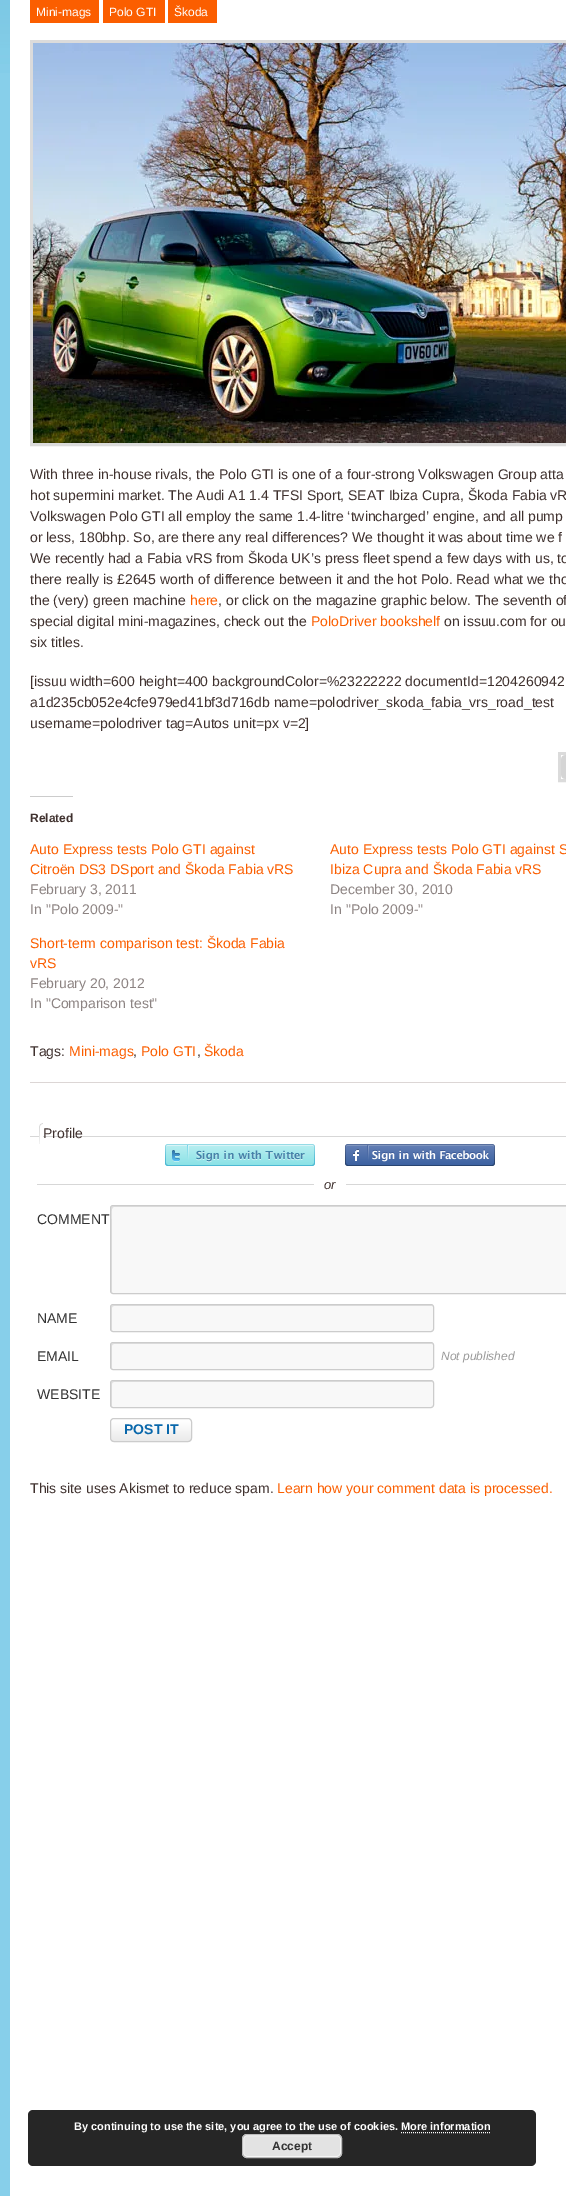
%!PS
<< /PageSize [566 2196] /PageUsesTransparency true >> setpagedevice
/rgb { 3 { 255 div 3 1 roll } repeat setrgbcolor } def
/font { [ exch dup neg 0 0 3 -1 roll 0 0 ] selectfont } def
/text { moveto show } def
/alpha { dup .setfillconstantalpha .setstrokeconstantalpha } def
/roundrect { 5 dict begin { /r /h /w /y /x } { exch def } forall
  x r add y moveto x w add y 2 copy h add r arct x w add y h add x 1 index r arct
  x y h add x y r arct x y 2 copy exch w add exch r arct closepath end } def
/picture { 5 dict begin { /h /w /y /x /name } { exch def } forall
  gsave x y translate w h scale
  w h 8 [w 0 0 h 0 0] name (r) file false 3 colorimage grestore end } def
0 .pushpdf14devicefilter
0 2196 translate 1 -1 scale
4 setmiterlimit
135 207 234 rgb
0 0 566 2196 rectfill
(img_01.rgb) 0 0 10 73 picture
255 255 255 rgb
10 0 556 2196 rectfill
220 214 213 rgb
30 1082 536 1 rectfill
251 94 0 rgb
30 0 69 23 rectfill
103 0 62 23 rectfill
168 0 49 23 rectfill
219 219 219 rgb
3 setlinewidth
31.5 41.5 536 403 rectstroke
(img_02.rgb) 33 43 533 400 picture
559.5 753.5 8 27 rectstroke
(img_03.rgb) 561 755 5 24 picture
204 204 204 rgb
30 796 43 1 rectfill
(img_04.rgb) 30 1123 536 21 picture
(img_05.rgb) 165 1144 150 22 picture
(img_06.rgb) 345 1144 150 22 picture
215 215 215 rgb
37 1184 529 1 rectfill
255 255 255 rgb
314 1184 32 1 rectfill
248 248 248 rgb
111 1206 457 87 2 roundrect fill
223 223 223 rgb
114 1207 moveto 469 0 rlineto 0 0 -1 -1 -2 -1 rcurveto -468 0 rlineto -1 0 -2 1 -2 2 rcurveto 0 83 rlineto 0 1 1 2 1 2 rcurveto 0 -70 rlineto 0 -4 -2 -16 2 -16 rcurveto closepath fill
204 204 204 rgb
1 setlinewidth
110.5 1205.5 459 88 2.5 roundrect stroke
248 248 248 rgb
111 1305 322 26 2 roundrect fill
0.1 alpha
0 0 0 rgb
114 1306 moveto 319 0 rlineto -2 -1 rlineto -318 0 rlineto -2 1 rlineto 0 24 rlineto 1 1 rlineto 0 -19 rlineto 0 -2 -1 -6 2 -6 rcurveto closepath fill
1 alpha
204 204 204 rgb
110.5 1304.5 323 27 2.5 roundrect stroke
248 248 248 rgb
111 1343 322 26 2 roundrect fill
0.1 alpha
0 0 0 rgb
114 1344 moveto 319 0 rlineto -2 -1 rlineto -318 0 rlineto -2 1 rlineto 0 24 rlineto 1 1 rlineto 0 -19 rlineto 0 -2 -1 -6 2 -6 rcurveto closepath fill
1 alpha
204 204 204 rgb
110.5 1342.5 323 27 2.5 roundrect stroke
248 248 248 rgb
111 1381 322 26 2 roundrect fill
0.1 alpha
0 0 0 rgb
114 1382 moveto 319 0 rlineto -2 -1 rlineto -318 0 rlineto -2 1 rlineto 0 24 rlineto 1 1 rlineto 0 -19 rlineto 0 -2 -1 -6 2 -6 rcurveto closepath fill
1 alpha
204 204 204 rgb
110.5 1380.5 323 27 2.5 roundrect stroke
(img_07.rgb) 111 1419 81 23 picture
110.5 1418.5 81 23 3.5 roundrect stroke
38 38 38 rgb
28 2110 508 56 5 roundrect fill
255 255 255 rgb
[1 1] 0 setdash
401 2132.5 moveto 90 0 rlineto stroke
227 227 227 rgb
242 2134 100 24 5 roundrect fill
246 246 246 rgb
[] 0 setdash
243.5 2135.5 97 21 3.5 roundrect stroke
187 187 187 rgb
242.5 2134.5 99 23 4.5 roundrect stroke
/LiberationSans-Regular 12 font
255 255 255 rgb
(Mini-mags) 36 16 text
(Polo GTI) 109 16 text
(Škoda) 174 16 text
/LiberationSans-Regular 14 font
63 49 46 rgb
(With three in-house rivals, the Polo GTI is one of a four-strong Volkswagen Group atta) 30 479 text
(hot supermini market. The Audi A1 1.4 TFSI Sport, SEAT Ibiza Cupra, Škoda Fabia vR) 30 500 text
(Volkswagen Polo GTI all employ the same 1.4-litre ‘twincharged’ engine, and all pump) 30 521 text
(or less, 180bhp. So, are there any real differences? We thought it was about time we f) 30 542 text
(We recently had a Fabia vRS from Škoda UK’s press fleet spend a few days with us, to) 30 563 text
(there really is £2645 worth of difference between it and the hot Polo. Read what we tho) 30 584 text
(the \(very\) green machine) 30 605 text
251 94 0 rgb
(here) 190 605 text
63 49 46 rgb
(, or click on the magazine graphic below. The seventh of) 218 605 text
(special digital mini-magazines, check out the) 30 626 text
251 94 0 rgb
(PoloDriver bookshelf) 311 626 text
63 49 46 rgb
(on issuu.com for ou) 444 626 text
(six titles.) 30 647 text
([issuu width=600 height=400 backgroundColor=%23222222 documentId=1204260942) 30 686 text
(a1d235cb052e4cfe979ed41bf3d716db name=polodriver_skoda_fabia_vrs_road_test) 30 707 text
(username=polodriver tag=Autos unit=px v=2]) 30 728 text
/LiberationSans-Bold 12 font
(Related) 30 822 text
/LiberationSans-Regular 14 font
251 94 0 rgb
(Auto Express tests Polo GTI against) 30 854 text
(Citroën DS3 DSport and Škoda Fabia vRS) 30 874 text
140 131 130 rgb
(February 3, 2011) 30 894 text
(In "Polo 2009-") 30 914 text
251 94 0 rgb
(Auto Express tests Polo GTI against S) 330 854 text
(Ibiza Cupra and Škoda Fabia vRS) 330 874 text
140 131 130 rgb
(December 30, 2010) 330 894 text
(In "Polo 2009-") 330 914 text
251 94 0 rgb
(Short-term comparison test: Škoda Fabia) 30 948 text
(vRS) 30 968 text
140 131 130 rgb
(February 20, 2012) 30 988 text
(In "Comparison test") 30 1008 text
63 49 46 rgb
(Tags:) 30 1056 text
251 94 0 rgb
(Mini-mags) 69 1056 text
63 49 46 rgb
(,) 133 1056 text
251 94 0 rgb
(Polo GTI) 141 1056 text
63 49 46 rgb
(,) 197 1056 text
251 94 0 rgb
(Škoda) 204 1056 text
63 49 46 rgb
(Profile) 43 1138 text
/LiberationSans-Italic 13 font
(or) 324 1189 text
/LiberationSans-Regular 14 font
51 51 51 rgb
(COMMENT) 37 1224 text
(NAME) 37 1323 text
(EMAIL) 37 1361 text
/LiberationSans-Italic 12 font
153 153 153 rgb
(Not published) 441 1360 text
/LiberationSans-Regular 14 font
51 51 51 rgb
(WEBSITE) 37 1399 text
/LiberationSans-Bold 14 font
8 103 171 rgb
(POST IT) 124 1434 text
/LiberationSans-Regular 14 font
63 49 46 rgb
(This site uses Akismet to reduce spam.) 30 1493 text
251 94 0 rgb
(Learn how your comment data is processed.) 277 1493 text
/LiberationSans-Bold 11 font
255 255 255 rgb
(By continuing to use the site, you agree to the use of cookies. More information) 74 2130 text
/LiberationSans-Bold 12 font
51 51 51 rgb
(Accept) 272 2150 text
.poppdf14devicefilter showpage
